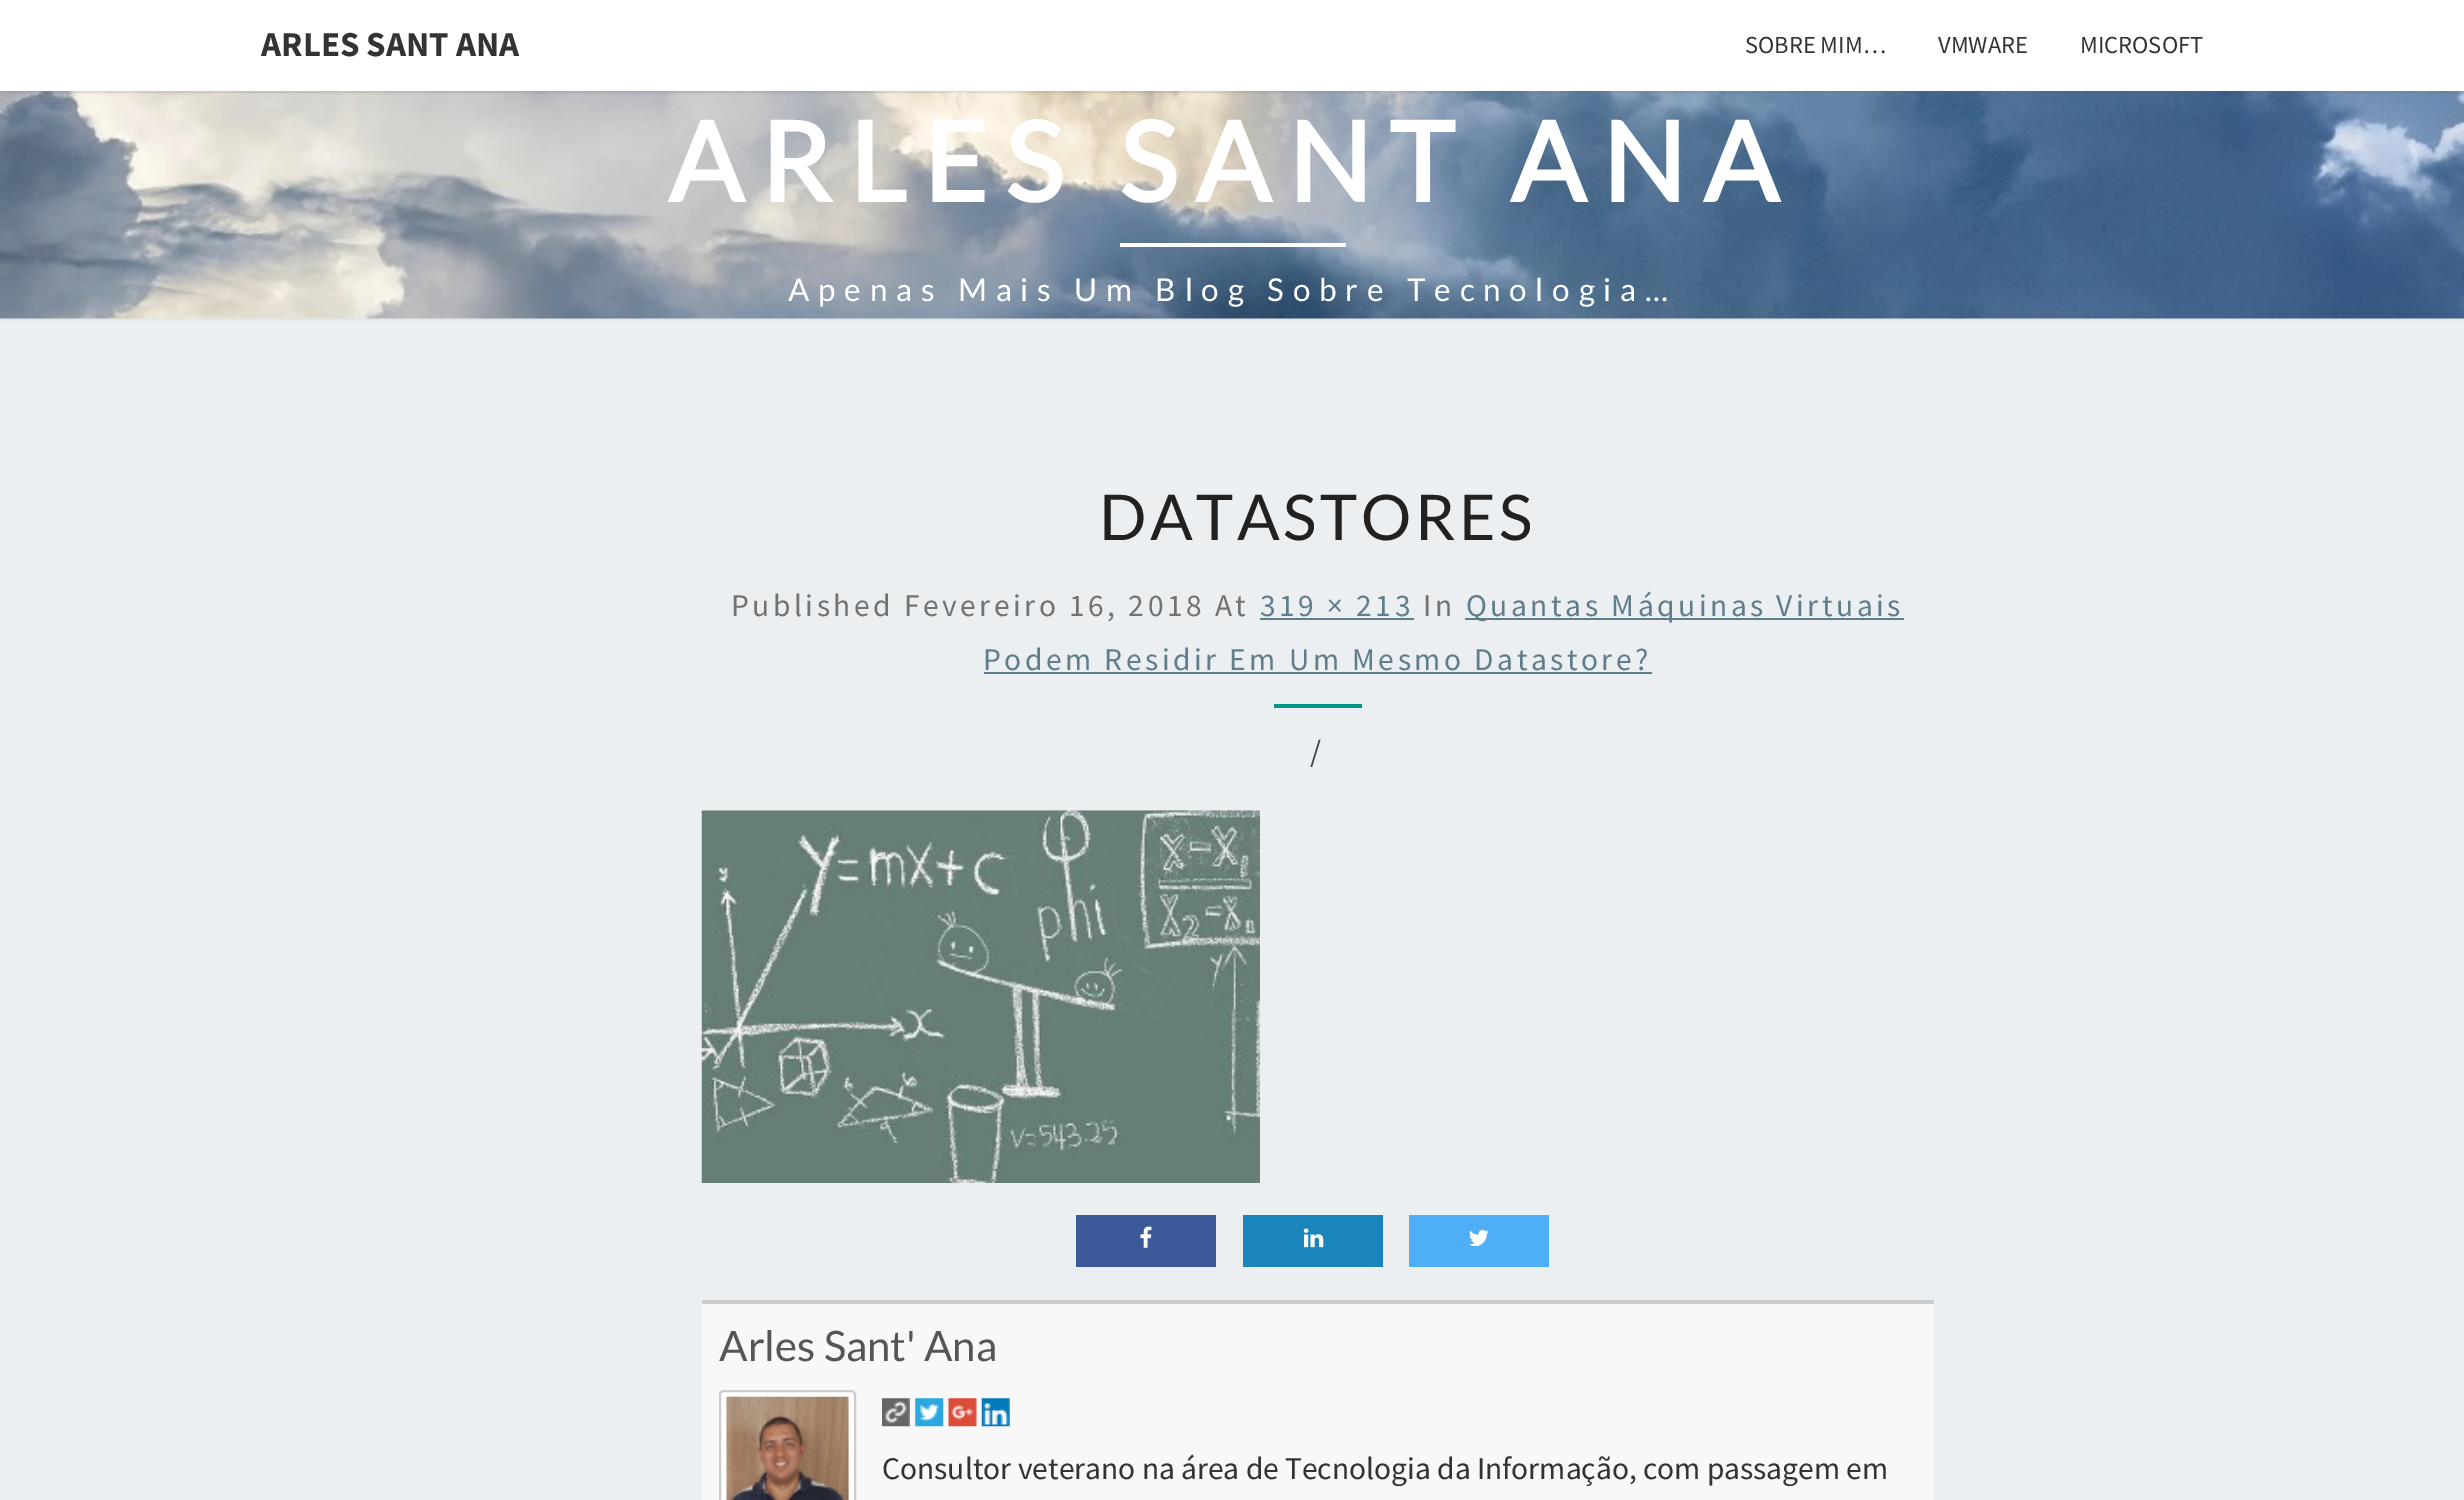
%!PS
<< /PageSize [2464 1500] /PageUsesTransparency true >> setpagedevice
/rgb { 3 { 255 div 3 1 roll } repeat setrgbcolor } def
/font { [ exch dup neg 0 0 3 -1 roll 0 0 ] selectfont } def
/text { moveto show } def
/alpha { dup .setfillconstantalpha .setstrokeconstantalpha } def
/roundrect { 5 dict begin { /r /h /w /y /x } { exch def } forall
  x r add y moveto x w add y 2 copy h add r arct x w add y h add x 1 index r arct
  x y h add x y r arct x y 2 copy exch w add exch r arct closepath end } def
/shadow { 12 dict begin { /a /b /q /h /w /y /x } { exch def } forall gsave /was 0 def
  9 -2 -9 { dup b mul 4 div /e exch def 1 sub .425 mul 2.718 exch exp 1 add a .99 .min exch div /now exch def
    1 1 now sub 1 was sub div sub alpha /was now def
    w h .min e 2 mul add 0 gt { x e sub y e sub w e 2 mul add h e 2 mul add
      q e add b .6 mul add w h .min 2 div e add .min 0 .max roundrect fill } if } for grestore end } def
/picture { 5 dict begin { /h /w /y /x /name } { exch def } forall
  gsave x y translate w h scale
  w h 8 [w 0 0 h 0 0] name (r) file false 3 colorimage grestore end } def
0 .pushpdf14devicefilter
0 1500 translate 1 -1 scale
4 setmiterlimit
236 239 241 rgb
0 0 2464 1500 rectfill
182 182 182 rgb
-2 89 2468 231 0 2 0.3 shadow
(img_01.rgb) 0 91 2464 228 picture
100 100 100 rgb
0 2 2464 91 0 1 0.2 shadow
255 255 255 rgb
0 0 2464 91 rectfill
1120 243 226 4 rectfill
96 125 139 rgb
1260 618 154 2 rectfill
1465 618 439 2 rectfill
984 672 668 2 rectfill
0 150 136 rgb
1274 704 88 4 rectfill
(img_02.rgb) 701 810 559 373 picture
59 89 152 rgb
1076 1215 140 52 rectfill
(img_03.rgb) 1140 1226 12 22 picture
26 133 188 rgb
1243 1215 140 52 rectfill
(img_04.rgb) 1303 1228 21 20 picture
78 174 248 rgb
1409 1215 140 52 rectfill
(img_05.rgb) 1469 1229 20 18 picture
248 248 248 rgb
702 1304 1232 196 rectfill
204 204 204 rgb
702 1300 1232 4 rectfill
255 255 255 rgb
720 1391 135 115 4 roundrect gsave fill grestore
204 204 204 rgb
2 setlinewidth
stroke
(img_06.rgb) 726 1396 123 104 picture
(img_07.rgb) 882 1398 28 29 picture
(img_08.rgb) 915 1398 29 29 picture
(img_09.rgb) 948 1398 29 29 picture
(img_10.rgb) 981 1398 29 29 picture
/SourceSansPro-Bold 35 font
51 51 51 rgb
(ARLES SANT ANA) 261 56 text
/SourceSansPro-Regular 24.5 font
(SOBRE MIM…) 1745 53 text
(VMWARE) 1938 53 text
(MICROSOFT) 2080 53 text
/Lato-Bold 110.25 font
255 255 255 rgb
668 202 moveto 17.5 0 (ARLES SANT ANA) ashow
/Lato-Regular 31.5 font
788 301 moveto 8.75 0 (Apenas Mais Um Blog Sobre Tecnologia…) ashow
/Lato-Regular 63 font
33 33 33 rgb
1099 540 moveto 3.5 0 (DATASTORES) ashow
/SourceSansPro-Regular 31.5 font
114 114 114 rgb
731 616 moveto 3.5 0 (Published Fevereiro 16, 2018 At) ashow
96 125 139 rgb
1260 616 moveto 3.5 0 (319 × 213) ashow
114 114 114 rgb
1423 616 moveto 3.5 0 (In) ashow
96 125 139 rgb
1466 616 moveto 3.5 0 (Quantas Máquinas Virtuais) ashow
983 670 moveto 3.5 0 (Podem Residir Em Um Mesmo Datastore?) ashow
66 66 66 rgb
1310 762 moveto 3.5 0 (/) ashow
/Lato-Regular 42 font
85 85 85 rgb
(Arles Sant' Ana) 719 1361 text
/SourceSansPro-Regular 31.5 font
51 51 51 rgb
(Consultor veterano na área de Tecnologia da Informação, com passagem em) 882 1479 text
.poppdf14devicefilter showpage
